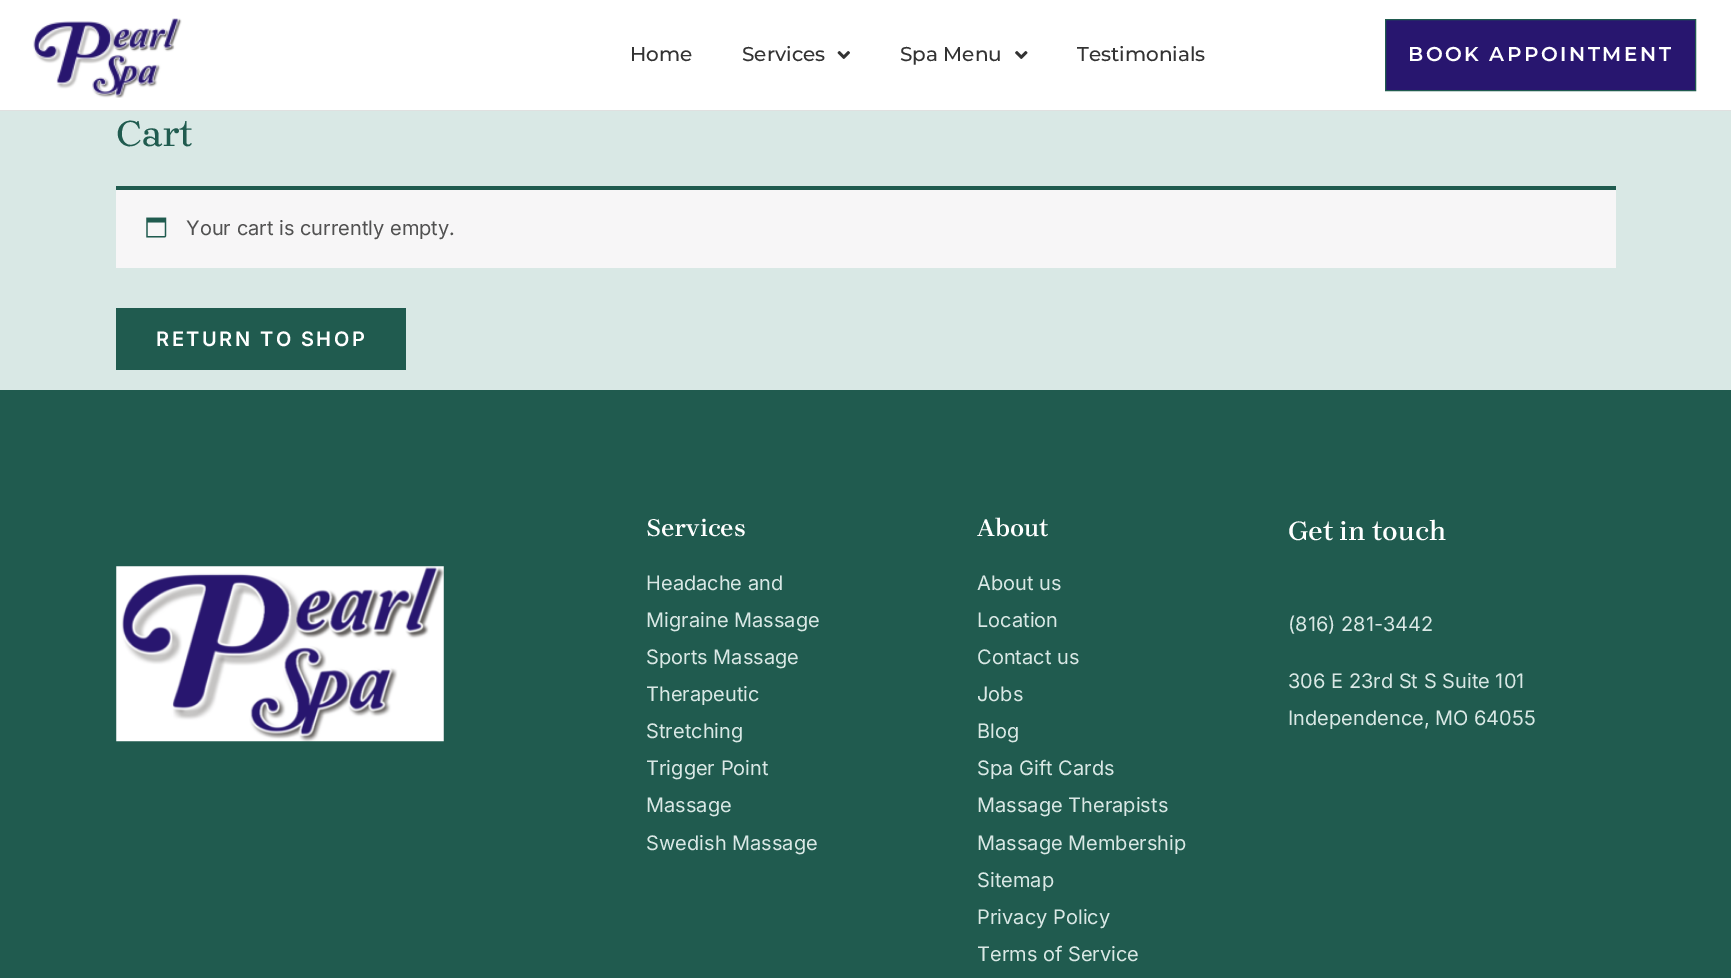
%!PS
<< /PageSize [1731 978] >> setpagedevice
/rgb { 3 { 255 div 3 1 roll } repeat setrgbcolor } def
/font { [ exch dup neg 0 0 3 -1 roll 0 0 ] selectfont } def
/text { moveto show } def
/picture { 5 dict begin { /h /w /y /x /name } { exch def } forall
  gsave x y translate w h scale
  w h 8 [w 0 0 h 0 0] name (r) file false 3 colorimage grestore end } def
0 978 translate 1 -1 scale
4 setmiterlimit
217 232 229 rgb
0 0 1731 978 rectfill
255 255 255 rgb
0 0 1731 110 rectfill
224 224 224 rgb
0 110 1731 1 rectfill
(img_01.rgb) 33 18 149 80 picture
(img_02.rgb) 837 51 13 8 picture
(img_03.rgb) 1015 51 13 8 picture
40 22 111 rgb
1385.5 19.5 moveto 310 0 rlineto 0 71 rlineto -310 0 rlineto closepath gsave fill grestore
32 91 79 rgb
stroke
247 246 247 rgb
116 190 1500 78 rectfill
32 91 79 rgb
116 186 1500 4 rectfill
(img_04.rgb) 146 217 21 21 picture
116 308 290 62 rectfill
0 390 1731 588 rectfill
(img_05.rgb) 116 566 328 176 picture
/Montserrat-Medium 20 font
51 51 51 rgb
(Home) 630 61 text
(Services) 742 61 text
(Spa Menu) 900 61 text
(Testimonials) 1077 61 text
/Montserrat-SemiBold 20 font
255 255 255 rgb
1408 61 moveto 2.5 0 (BOOK APPOINTMENT) ashow
/Brygada1918-Medium 37.5 font
32 91 79 rgb
(Cart) 116 146 text
/Inter-Regular 20 font
81 81 81 rgb
(Your cart is currently empty.) 186 235 text
/Inter-SemiBold 20 font
255 255 255 rgb
156 346 moveto 2.5 0 (RETURN TO SHOP) ashow
/Brygada1918-SemiBold 25 font
(Services) 646 536 text
/Inter-Regular 20 font
217 232 229 rgb
(Headache and) 646 590 text
(Migraine Massage) 646 627 text
(Sports Massage) 646 664 text
(Therapeutic) 646 701 text
(Stretching) 646 738 text
(Trigger Point) 646 775 text
(Massage) 646 812 text
(Swedish Massage) 646 850 text
/Brygada1918-SemiBold 25 font
255 255 255 rgb
(About) 977 536 text
/Inter-Regular 20 font
217 232 229 rgb
(About us) 977 590 text
(Location) 977 627 text
(Contact us) 977 664 text
(Jobs) 977 701 text
(Blog) 977 738 text
(Spa Gift Cards) 977 775 text
(Massage Therapists) 977 812 text
(Massage Membership) 977 850 text
(Sitemap) 977 887 text
(Privacy Policy) 977 924 text
(Terms of Service) 977 961 text
/Brygada1918-SemiBold 27.5 font
255 255 255 rgb
(Get in touch) 1288 540 text
/Inter-Regular 20 font
217 232 229 rgb
(\(816\) 281-3442) 1288 631 text
(306 E 23rd St S Suite 101) 1288 688 text
(Independence, MO 64055) 1288 725 text
showpage
